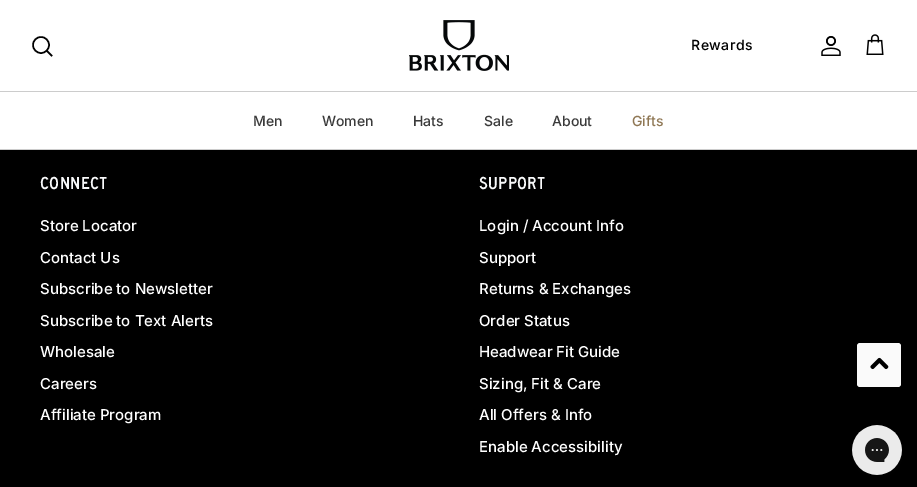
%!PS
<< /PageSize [917 487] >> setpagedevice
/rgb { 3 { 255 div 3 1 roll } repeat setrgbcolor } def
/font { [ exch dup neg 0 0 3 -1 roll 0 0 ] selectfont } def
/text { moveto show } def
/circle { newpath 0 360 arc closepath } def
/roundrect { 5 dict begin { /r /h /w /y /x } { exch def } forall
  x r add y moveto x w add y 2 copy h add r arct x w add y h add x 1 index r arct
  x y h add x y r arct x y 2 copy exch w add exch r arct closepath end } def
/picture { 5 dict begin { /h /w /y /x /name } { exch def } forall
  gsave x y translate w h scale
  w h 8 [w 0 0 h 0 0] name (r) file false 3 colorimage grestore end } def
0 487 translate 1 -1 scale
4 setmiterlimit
0 0 0 rgb
0 0 917 487 rectfill
255 255 255 rgb
0 0 917 91 rectfill
204 204 204 rgb
0 91 917 1 rectfill
0 0 0 rgb
1.5 setlinewidth
41 45 8 circle stroke
2 setlinecap
47 51 moveto 4.5 4.5 rlineto stroke
(img_01.rgb) 409 20 100 51 picture
(img_02.rgb) 821 36 20 20 picture
(img_03.rgb) 866 34 18 21 picture
204 204 204 rgb
0 149 917 1 rectfill
255 255 255 rgb
0 92 917 57 rectfill
250 250 250 rgb
857 343 44 44 3 roundrect fill
(img_04.rgb) 870 357 19 13 picture
(img_05.rgb) 852 425 50 50 picture
/Inter-Medium 14 font
0 0 0 rgb
691 50 moveto 0.5 0 (Rewards) ashow
58 58 58 rgb
(Men) 253 126 text
(Women) 322 126 text
(Hats) 413 126 text
(Sale) 484 126 text
(About) 552 126 text
143 119 84 rgb
(Gifts) 632 126 text
/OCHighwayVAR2-Regular 18 font
248 249 250 rgb
40 189 moveto 0.25 0 (CONNECT) ashow
/Inter-Medium 15 font
255 255 255 rgb
(Store Locator) 40 231 text
(Contact Us) 40 263 text
(Subscribe to Newsletter) 40 294 text
(Subscribe to Text Alerts) 40 326 text
(Wholesale) 40 357 text
(Careers) 40 389 text
(Affiliate Program) 40 420 text
/OCHighwayVAR2-Regular 18 font
248 249 250 rgb
479 189 moveto 0.25 0 (SUPPORT) ashow
/Inter-Medium 15 font
255 255 255 rgb
(Login / Account Info) 479 231 text
(Support) 479 263 text
(Returns & Exchanges) 479 294 text
(Order Status) 479 326 text
(Headwear Fit Guide) 479 357 text
(Sizing, Fit & Care) 479 389 text
(All Offers & Info) 479 420 text
(Enable Accessibility) 479 452 text
showpage
